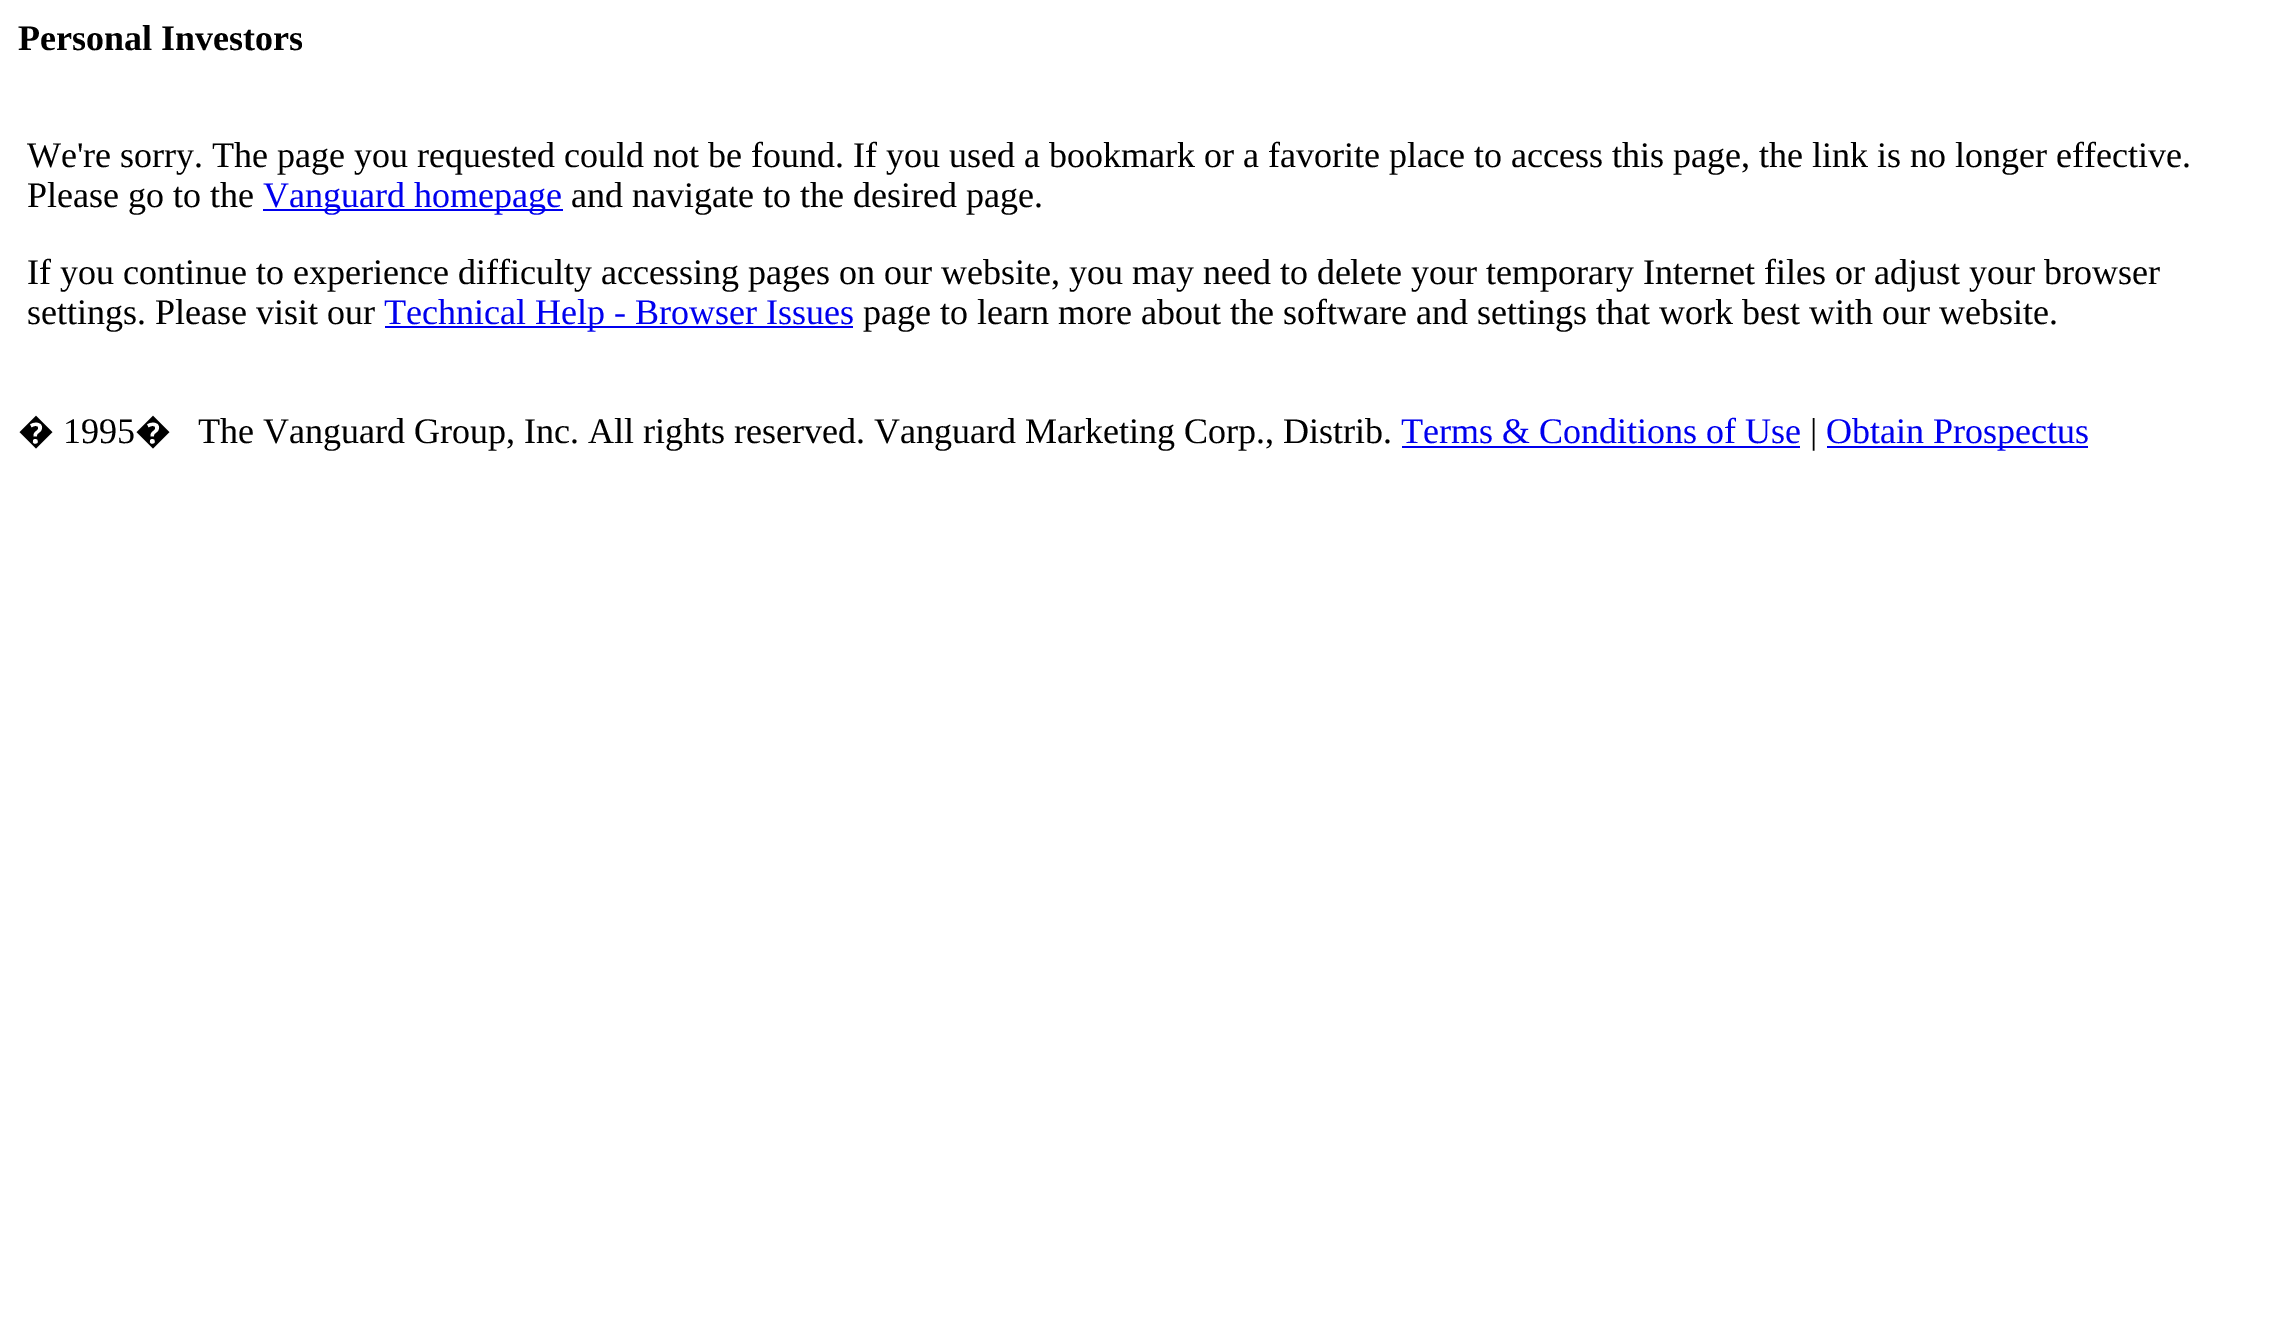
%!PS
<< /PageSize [2283 1330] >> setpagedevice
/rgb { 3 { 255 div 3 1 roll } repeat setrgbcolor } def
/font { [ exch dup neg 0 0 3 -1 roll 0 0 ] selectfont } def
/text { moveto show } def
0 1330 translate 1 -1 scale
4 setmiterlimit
255 255 255 rgb
0 0 2283 1330 rectfill
0 0 238 rgb
263 209 300 2 rectfill
385 326 468 2 rectfill
1402 446 398 2 rectfill
1827 446 261 2 rectfill
/LiberationSerif-Bold 36 font
0 0 0 rgb
(Personal Investors) 18 50 text
/LiberationSerif-Regular 36 font
(We're sorry. The page you requested could not be found. If you used a bookmark or a favorite place to access this page, the link is no longer effective.) 27 167 text
(Please go to the) 27 207 text
0 0 238 rgb
(Vanguard homepage) 263 207 text
0 0 0 rgb
(and navigate to the desired page.) 571 207 text
(If you continue to experience difficulty accessing pages on our website, you may need to delete your temporary Internet files or adjust your browser) 27 284 text
(settings. Please visit our) 27 324 text
0 0 238 rgb
(Technical Help - Browser Issues) 384 324 text
0 0 0 rgb
(page to learn more about the software and settings that work best with our website.) 863 324 text
/NotoSans-Regular 36 font
(�) 18 443 text
/LiberationSerif-Regular 36 font
(1995) 63 443 text
/NotoSans-Regular 36 font
(�) 135 443 text
/LiberationSerif-Regular 36 font
(The Vanguard Group, Inc. All rights reserved. Vanguard Marketing Corp., Distrib.) 198 443 text
0 0 238 rgb
(Terms & Conditions of Use) 1401 443 text
0 0 0 rgb
(|) 1810 443 text
0 0 238 rgb
(Obtain Prospectus) 1826 443 text
showpage
